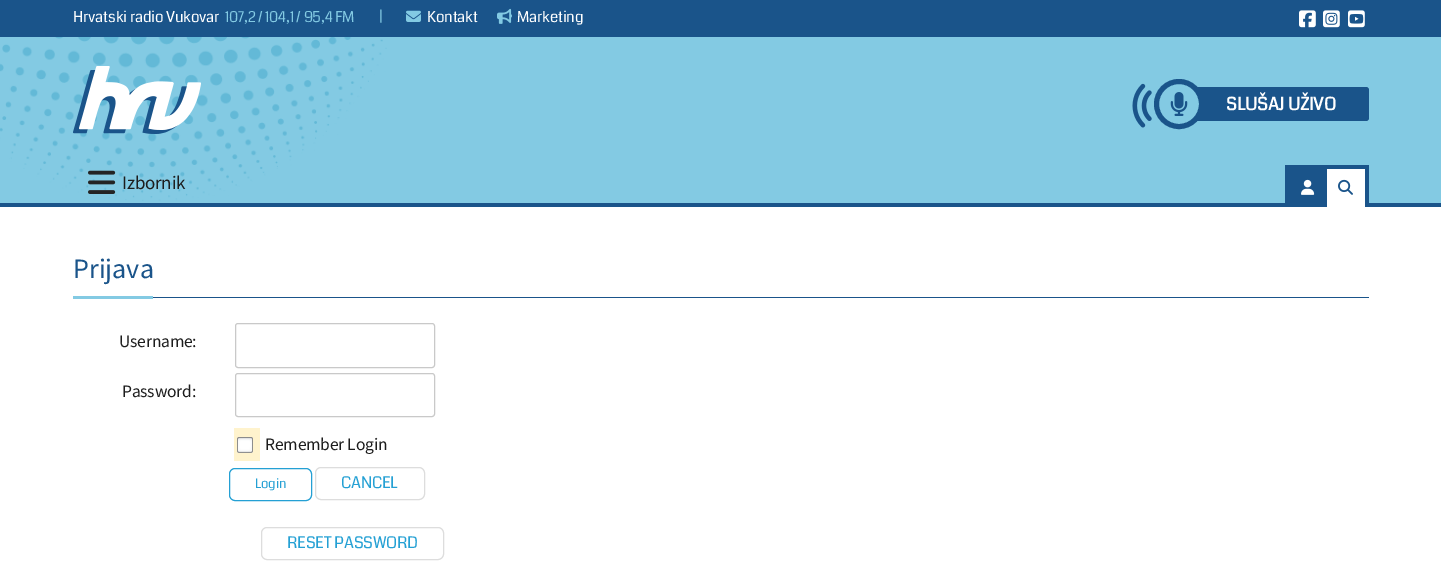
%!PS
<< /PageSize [1441 566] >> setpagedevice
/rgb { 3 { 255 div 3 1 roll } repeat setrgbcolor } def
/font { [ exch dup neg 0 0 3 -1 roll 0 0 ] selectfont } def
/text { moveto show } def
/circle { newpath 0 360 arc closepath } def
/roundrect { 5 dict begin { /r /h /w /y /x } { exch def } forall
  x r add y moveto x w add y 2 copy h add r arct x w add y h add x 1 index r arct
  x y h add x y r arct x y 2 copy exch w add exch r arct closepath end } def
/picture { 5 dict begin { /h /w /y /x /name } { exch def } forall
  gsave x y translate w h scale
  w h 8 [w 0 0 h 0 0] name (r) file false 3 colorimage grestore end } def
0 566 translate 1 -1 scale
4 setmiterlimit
255 255 255 rgb
0 0 1441 566 rectfill
26 84 138 rgb
0 0 1441 37 rectfill
(img_01.rgb) 406 10 15 12 picture
(img_02.rgb) 497 8 15 16 picture
(img_03.rgb) 1299 10 17 18 picture
(img_04.rgb) 1323 10 17 18 picture
(img_05.rgb) 1348 10 17 18 picture
131 202 227 rgb
0 37 1441 166 rectfill
26 84 138 rgb
0 203 1441 4 rectfill
(img_06.rgb) 0 37 387 164 picture
(img_07.rgb) 73 66 128 68 picture
1194 87 175 34 3 roundrect fill
(img_08.rgb) 1132 83 23 45 picture
131 202 227 rgb
1179 104 22.5 circle gsave fill grestore
26 84 138 rgb
5 setlinewidth
stroke
(img_09.rgb) 1170 92 18 24 picture
(img_10.rgb) 88 170 28 24 picture
1285 165 84 4 rectfill
1365 165 4 42 rectfill
1285 165 4 42 rectfill
1289 169 38 34 rectfill
(img_11.rgb) 1301 179 14 16 picture
255 255 255 rgb
1327 169 38 38 rectfill
(img_12.rgb) 1338 179 15 16 picture
26 84 138 rgb
153 297 1216 1 rectfill
131 202 227 rgb
73 296 80 3 rectfill
201 201 201 rgb
1 setlinewidth
235.5 323.5 199 44 2.5 roundrect stroke
235.5 373.5 199 43 2.5 roundrect stroke
255 243 205 rgb
234 428 26 33 rectfill
(img_13.rgb) 237 437 16 16 picture
36 160 212 rgb
229.5 468.5 82 32 5.5 roundrect stroke
221 221 221 rgb
315.5 467.5 109 32 5.5 roundrect stroke
261.5 527.5 182 32 5.5 roundrect stroke
/Coda-Regular 15 font
255 255 255 rgb
73 22 moveto -0.2 0 (Hrvatski radio Vukovar) ashow
131 202 227 rgb
225 22 moveto -0.2 0 (107,2 / 104,1 / 95,4 FM) ashow
379 22 moveto -0.2 0 (|) ashow
255 255 255 rgb
427 22 moveto -0.2 0 (Kontakt) ashow
517 22 moveto -0.2 0 (Marketing) ashow
/Coda-Bold 17.5 font
1226 110 moveto -0.2 0 (SLUŠAJ UŽIVO) ashow
/SourceSansPro-Regular 19 font
29 29 29 rgb
122 189 moveto -0.2 0 (Izbornik) ashow
/SourceSansPro-Regular 28 font
26 84 138 rgb
(Prijava) 73 278 text
/SourceSansPro-Regular 17.5 font
29 29 29 rgb
119 347 moveto -0.2 0 (Username:) ashow
122 397 moveto -0.2 0 (Password:) ashow
265 450 moveto -0.2 0 (Remember Login) ashow
/Coda-Regular 13 font
36 160 212 rgb
255 488 moveto -0.2 0 (Login) ashow
/Coda-Regular 16 font
341 488 moveto -0.2 0 (CANCEL) ashow
287 548 moveto -0.2 0 (RESET PASSWORD) ashow
showpage
